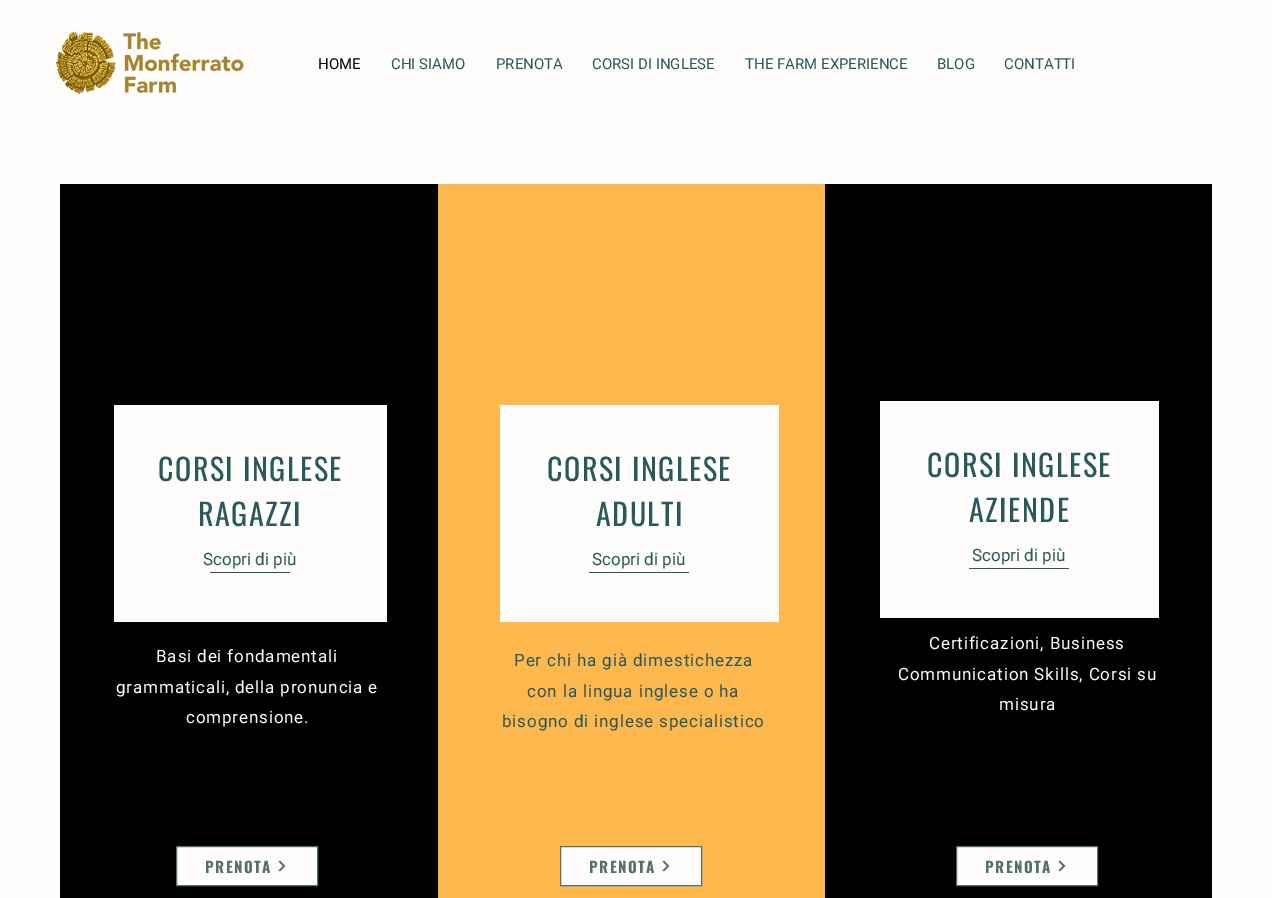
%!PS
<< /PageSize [1272 898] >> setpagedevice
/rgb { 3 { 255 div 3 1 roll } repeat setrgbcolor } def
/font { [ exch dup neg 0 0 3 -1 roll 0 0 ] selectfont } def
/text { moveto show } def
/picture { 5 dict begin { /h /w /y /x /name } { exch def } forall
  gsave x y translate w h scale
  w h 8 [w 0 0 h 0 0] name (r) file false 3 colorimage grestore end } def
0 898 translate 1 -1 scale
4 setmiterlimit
255 253 251 rgb
0 0 1272 898 rectfill
(img_01.rgb) 55 31 189 63 picture
0 0 0 rgb
60 184 378 714 rectfill
255 253 251 rgb
114 405 273 217 rectfill
40 90 91 rgb
210 572 80 1 rectfill
255 253 251 rgb
176.5 846.5 moveto 141 0 rlineto 0 39 rlineto -141 0 rlineto closepath gsave fill grestore
79 113 112 rgb
stroke
(img_02.rgb) 278 860 8 12 picture
255 184 77 rgb
438 184 387 714 rectfill
255 253 251 rgb
500 405 279 217 rectfill
40 90 91 rgb
589 572 100 1 rectfill
255 253 251 rgb
560.5 846.5 moveto 141 0 rlineto 0 39 rlineto -141 0 rlineto closepath gsave fill grestore
79 113 112 rgb
stroke
(img_02.rgb) 662 860 8 12 picture
0 0 0 rgb
825 184 387 714 rectfill
255 253 251 rgb
880 401 279 217 rectfill
40 90 91 rgb
969 568 100 1 rectfill
255 253 251 rgb
956.5 846.5 moveto 141 0 rlineto 0 39 rlineto -141 0 rlineto closepath gsave fill grestore
79 113 112 rgb
stroke
(img_02.rgb) 1058 860 8 12 picture
/Roboto-Regular 15 font
0 0 0 rgb
(HOME) 318 69 text
40 90 91 rgb
(CHI SIAMO) 391 69 text
(PRENOTA) 496 69 text
(CORSI DI INGLESE) 592 69 text
(THE FARM EXPERIENCE) 745 69 text
(BLOG) 937 69 text
(CONTATTI) 1004 69 text
/Oswald-Regular 30 font
158 481 moveto 1.5 0 (CORSI INGLESE) ashow
198 526 moveto 1.5 0 (RAGAZZI) ashow
/Roboto-Regular 17 font
(Scopri di più) 203 565 text
255 253 251 rgb
156 662 moveto 0.85 0 (Basi dei fondamentali) ashow
116 693 moveto 0.85 0 (grammaticali, della pronuncia e) ashow
186 723 moveto 0.85 0 (comprensione.) ashow
/Oswald-Bold 15 font
79 113 112 rgb
205 873 moveto 1.5 0 (PRENOTA) ashow
/Oswald-Regular 30 font
40 90 91 rgb
547 481 moveto 1.5 0 (CORSI INGLESE) ashow
596 526 moveto 1.5 0 (ADULTI) ashow
/Roboto-Regular 17 font
(Scopri di più) 592 565 text
514 666 moveto 0.85 0 (Per chi ha già dimestichezza) ashow
527 697 moveto 0.85 0 (con la lingua inglese o ha) ashow
502 727 moveto 0.85 0 (bisogno di inglese specialistico) ashow
/Oswald-Bold 15 font
79 113 112 rgb
589 873 moveto 1.5 0 (PRENOTA) ashow
/Oswald-Regular 30 font
40 90 91 rgb
927 477 moveto 1.5 0 (CORSI INGLESE) ashow
969 522 moveto 1.5 0 (AZIENDE) ashow
/Roboto-Regular 17 font
(Scopri di più) 972 561 text
255 253 251 rgb
929 649 moveto 0.85 0 (Certificazioni, Business) ashow
898 680 moveto 0.85 0 (Communication Skills, Corsi su) ashow
999 710 moveto 0.85 0 (misura) ashow
/Oswald-Bold 15 font
79 113 112 rgb
985 873 moveto 1.5 0 (PRENOTA) ashow
showpage
